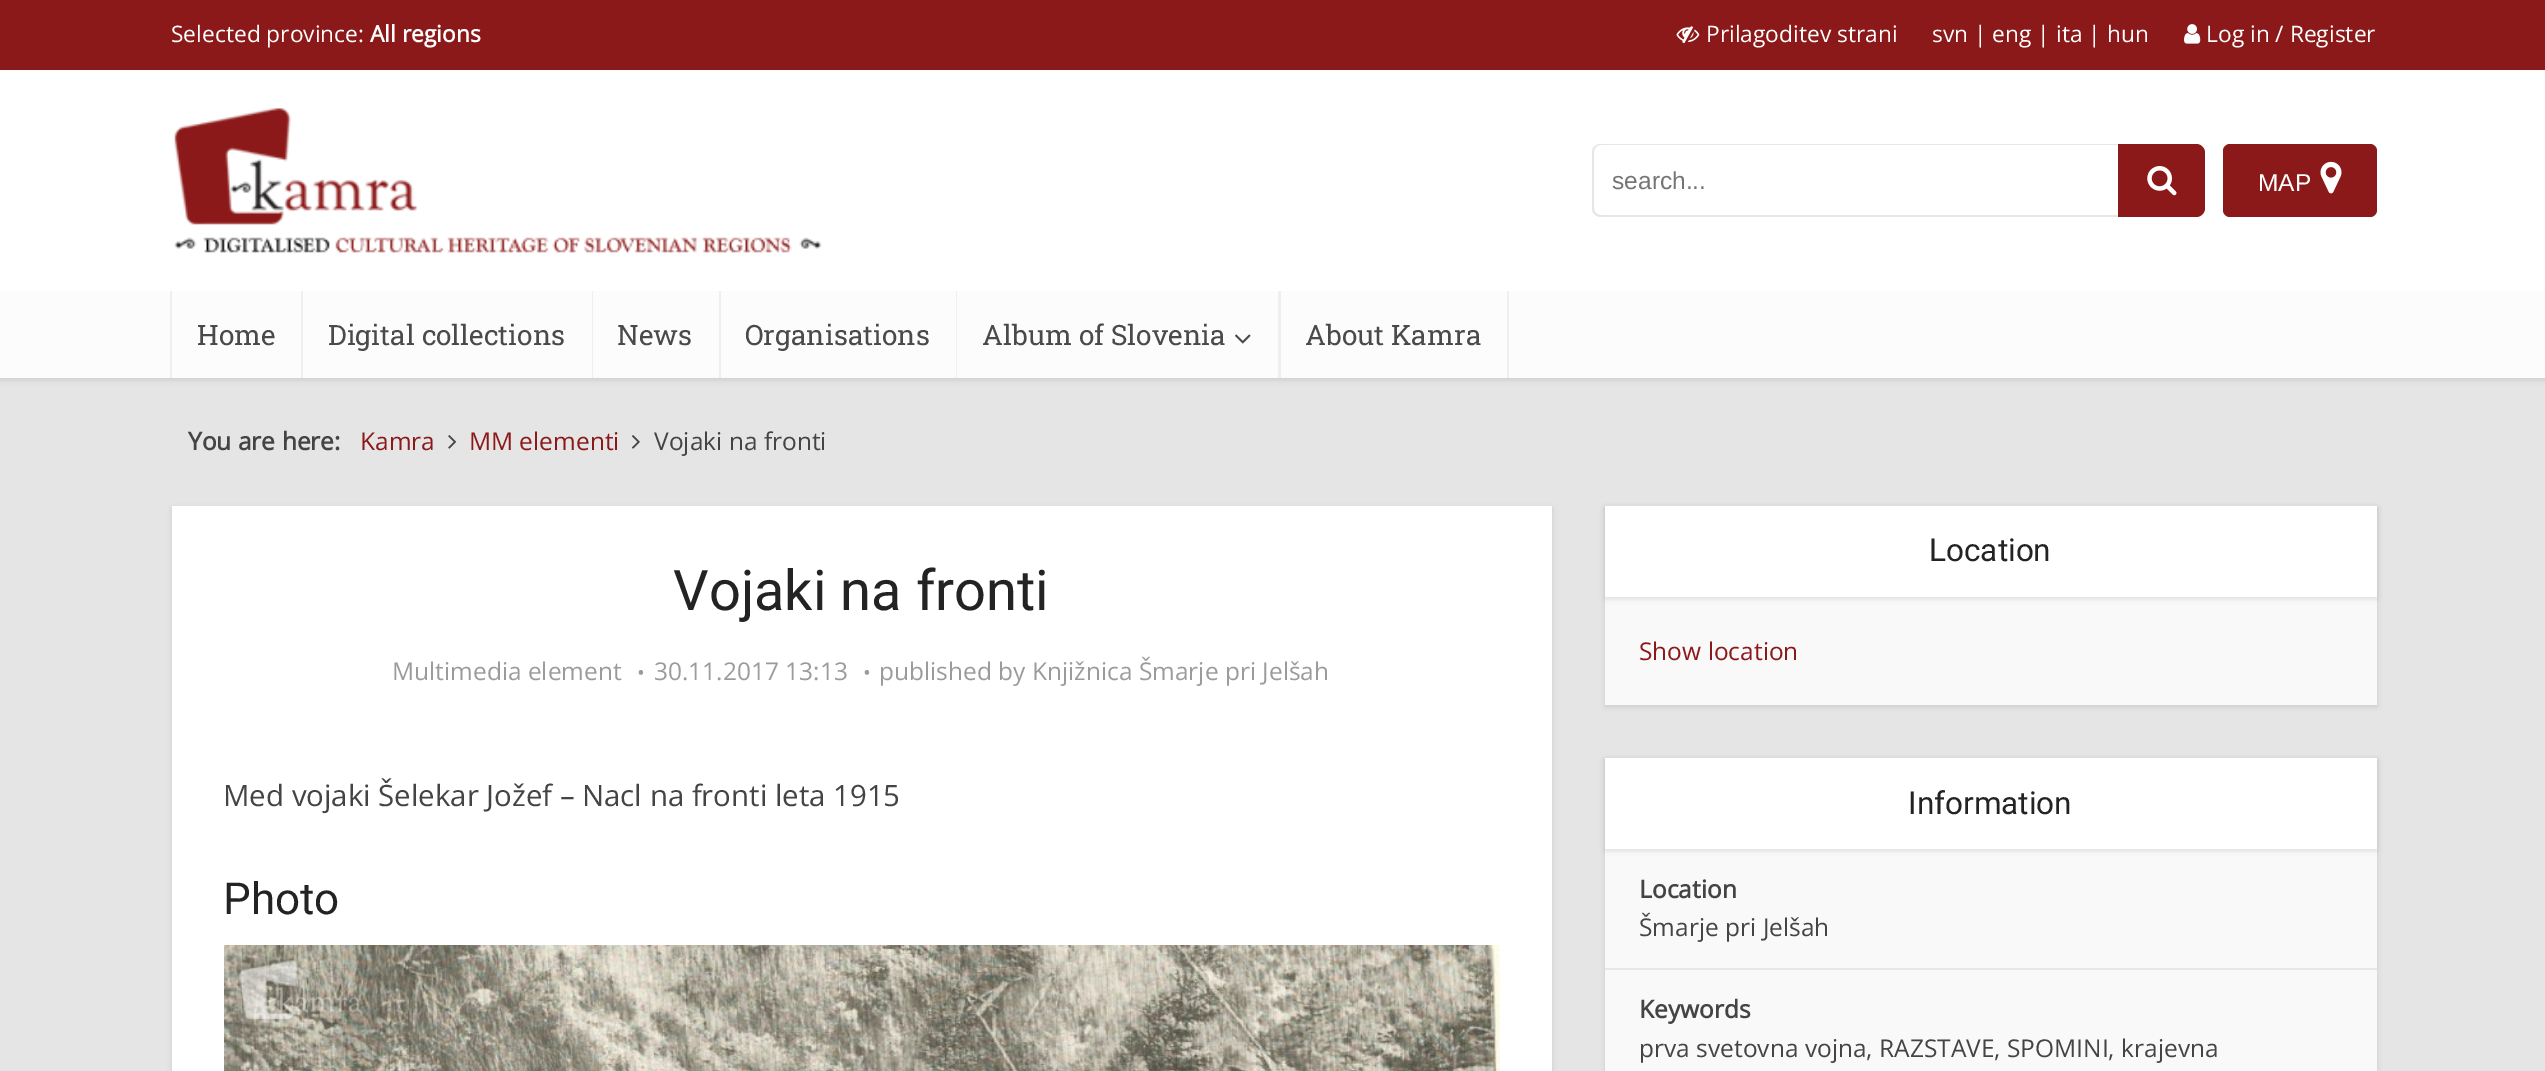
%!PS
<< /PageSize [2545 1071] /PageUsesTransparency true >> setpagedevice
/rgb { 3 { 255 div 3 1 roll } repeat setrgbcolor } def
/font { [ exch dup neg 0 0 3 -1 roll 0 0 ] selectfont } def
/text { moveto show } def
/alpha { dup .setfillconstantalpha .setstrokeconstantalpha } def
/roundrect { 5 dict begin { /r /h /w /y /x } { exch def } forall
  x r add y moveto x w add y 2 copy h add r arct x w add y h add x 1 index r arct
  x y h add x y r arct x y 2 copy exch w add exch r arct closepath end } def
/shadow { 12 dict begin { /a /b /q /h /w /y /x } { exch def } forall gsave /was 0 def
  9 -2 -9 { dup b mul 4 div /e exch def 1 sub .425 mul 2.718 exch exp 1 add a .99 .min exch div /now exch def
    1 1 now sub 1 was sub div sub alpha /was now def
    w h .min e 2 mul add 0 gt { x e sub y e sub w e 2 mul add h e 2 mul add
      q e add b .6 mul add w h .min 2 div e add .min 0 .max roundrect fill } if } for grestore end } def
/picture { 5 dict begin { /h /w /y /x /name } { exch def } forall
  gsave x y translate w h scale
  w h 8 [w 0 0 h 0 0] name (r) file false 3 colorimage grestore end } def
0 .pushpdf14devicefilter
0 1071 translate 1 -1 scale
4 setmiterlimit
229 229 229 rgb
0 0 2545 1071 rectfill
0 0 0 rgb
0 2 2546 378 0 2.5 0.1 shadow
255 255 255 rgb
0 70 2545 221 rectfill
140 25 25 rgb
0 0 2545 70 rectfill
(img_01.rgb) 1676 26 24 18 picture
(img_02.rgb) 2184 24 17 20 picture
(img_03.rgb) 174 108 648 145 picture
230 230 230 rgb
1601 144 moveto 517 0 rlineto 0 73 rlineto -517 0 rlineto -5 0 -9 -4 -9 -9 rcurveto 0 -56 rlineto 0 -5 4 -8 9 -8 rcurveto closepath 1601 145 moveto 517 0 rlineto 0 70 rlineto -517 0 rlineto -4 0 -7 -3 -7 -7 rcurveto 0 -56 rlineto 0 -4 3 -7 7 -7 rcurveto closepath eofill
140 25 25 rgb
2118 144 moveto 78 0 rlineto 5 0 9 4 9 9 rcurveto 0 55 rlineto 0 5 -4 9 -9 9 rcurveto -78 0 rlineto closepath fill
(img_04.rgb) 2147 166 30 30 picture
2223 144 154 73 7 roundrect fill
(img_05.rgb) 2320 161 22 33 picture
252 252 252 rgb
0 291 2545 87 rectfill
239 239 239 rgb
301 291 2 87 rectfill
170 291 2 87 rectfill
592 291 1 87 rectfill
719 291 2 87 rectfill
956 291 1 87 rectfill
1278 291 3 87 rectfill
(img_06.rgb) 1235 334 16 10 picture
1507 291 2 87 rectfill
(img_07.rgb) 448 435 9 14 picture
(img_08.rgb) 632 435 8 14 picture
0 0 0 rgb
172 508 1380 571 0 2.5 0.1 shadow
255 255 255 rgb
172 506 1380 565 rectfill
(img_09.rgb) 224 945 1276 126 picture
0 0 0 rgb
1605 508 772 199 0 2.5 0.1 shadow
249 249 249 rgb
1605 597 772 108 rectfill
0 0 0 rgb
1605 508 772 91 0 2.5 0.1 shadow
255 255 255 rgb
1605 506 772 91 rectfill
0 0 0 rgb
1605 760 772 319 0 2.5 0.1 shadow
249 249 249 rgb
1605 849 772 222 rectfill
0 0 0 rgb
1605 760 772 91 0 2.5 0.1 shadow
255 255 255 rgb
1605 758 772 91 rectfill
232 232 232 rgb
1605 968 772 2 rectfill
/OpenSans-Regular 22.75 font
255 255 255 rgb
(Selected province:) 171 42 text
/OpenSans-Bold 22.75 font
(All regions) 370 42 text
/OpenSans-Regular 22.75 font
(Prilagoditev strani) 1706 42 text
(svn | eng | ita | hun) 1932 42 text
(Log in / Register) 2206 42 text
/LiberationSans-Regular 24.5 font
117 117 117 rgb
(search...) 1612 189 text
255 255 255 rgb
(MAP) 2258 191 text
/RobotoSlab-Regular 28 font
74 74 74 rgb
(Home) 197 345 text
(Digital collections) 328 345 text
(News) 617 345 text
(Organisations) 745 345 text
(Album of Slovenia) 982 345 text
(About Kamra) 1305 345 text
/OpenSans-Bold 24.5 font
68 68 68 rgb
(You are here:) 188 450 text
/OpenSans-Regular 24.5 font
140 25 25 rgb
(Kamra) 360 450 text
(MM elementi) 469 450 text
68 68 68 rgb
(Vojaki na fronti) 654 450 text
/Roboto-Regular 56 font
35 35 35 rgb
(Vojaki na fronti) 673 610 text
/OpenSans-Regular 24.5 font
155 155 155 rgb
(Multimedia element) 392 680 text
/OpenSans-Regular 21 font
(•) 637 680 text
/OpenSans-Regular 24.5 font
(30.11.2017 13:13) 654 680 text
/OpenSans-Regular 21 font
(•) 863 680 text
/OpenSans-Regular 24.5 font
(published by Knjižnica Šmarje pri Jelšah) 879 680 text
/OpenSans-Regular 29.4 font
68 68 68 rgb
(Med vojaki Šelekar Jožef – Nacl na fronti leta 1915) 223 806 text
/Roboto-Regular 44 font
35 35 35 rgb
(Photo) 223 914 text
/Roboto-Regular 31.5 font
(Location) 1929 561 text
/OpenSans-Regular 24.5 font
140 25 25 rgb
(Show location) 1639 660 text
/Roboto-Regular 31.5 font
35 35 35 rgb
(Information) 1908 814 text
/OpenSans-Bold 24.5 font
68 68 68 rgb
(Location) 1639 898 text
/OpenSans-Regular 24.5 font
(Šmarje pri Jelšah) 1639 936 text
/OpenSans-Bold 24.5 font
(Keywords) 1639 1018 text
/OpenSans-Regular 24.5 font
(prva svetovna vojna, RAZSTAVE, SPOMINI, krajevna) 1639 1057 text
.poppdf14devicefilter showpage
